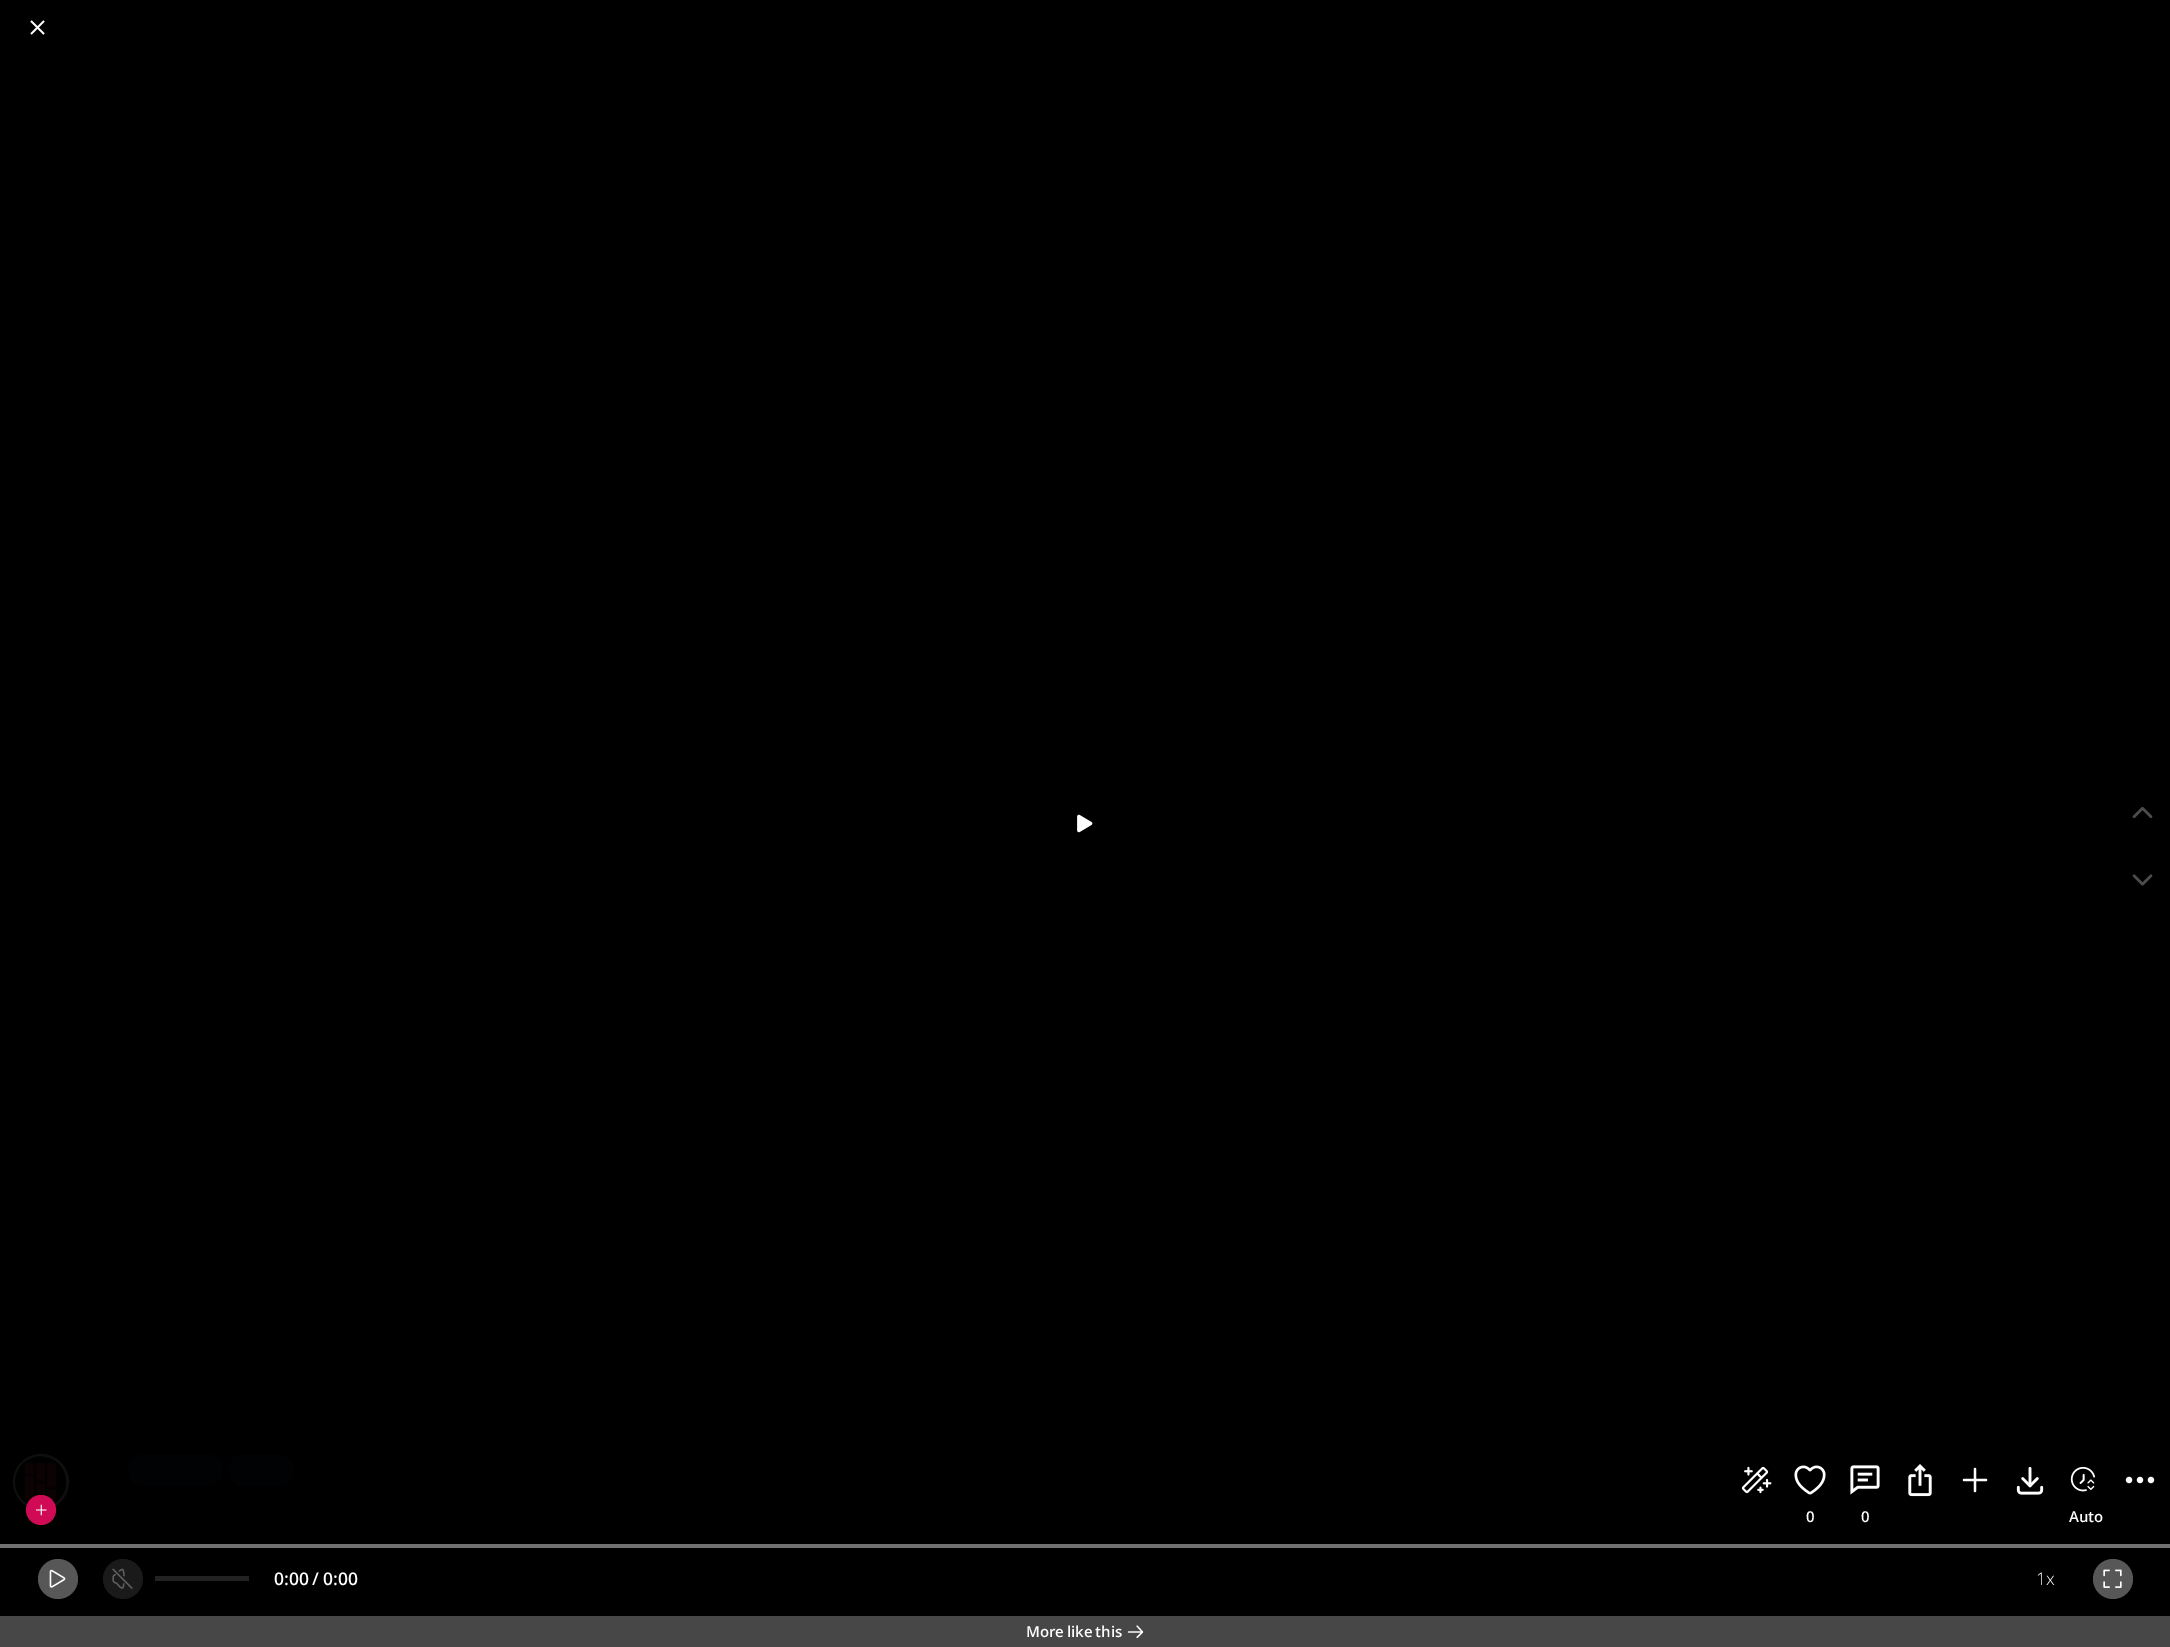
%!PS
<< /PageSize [2170 1647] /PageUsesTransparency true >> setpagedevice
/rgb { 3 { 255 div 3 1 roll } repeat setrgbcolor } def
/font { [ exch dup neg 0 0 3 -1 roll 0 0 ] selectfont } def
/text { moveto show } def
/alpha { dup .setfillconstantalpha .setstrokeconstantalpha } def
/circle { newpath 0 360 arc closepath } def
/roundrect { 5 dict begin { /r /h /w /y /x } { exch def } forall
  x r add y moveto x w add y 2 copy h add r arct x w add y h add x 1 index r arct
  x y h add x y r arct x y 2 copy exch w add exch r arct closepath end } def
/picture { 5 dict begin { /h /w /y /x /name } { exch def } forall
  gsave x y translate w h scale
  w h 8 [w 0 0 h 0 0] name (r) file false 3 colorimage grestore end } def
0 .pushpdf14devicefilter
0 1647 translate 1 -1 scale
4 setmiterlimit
0 0 0 rgb
0 0 2170 1647 rectfill
255 255 255 rgb
3 setlinewidth
41 1482 26.5 circle stroke
(img_05.rgb) 15 1456 52 49 picture
0.8 alpha
31 41 55 rgb
128 1454 95 32 16 roundrect fill
1 alpha
25 33 44 rgb
228 1454 66 32 16 roundrect fill
0.94 alpha
0 0 0 rgb
0 0 2170 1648 10 roundrect fill
1 alpha
(img_01.rgb) 30 20 15 15 picture
(img_02.rgb) 2132 806 21 12 picture
(img_03.rgb) 2132 874 21 12 picture
(img_04.rgb) 1077 814 16 19 picture
208 10 84 rgb
41 1510 15 circle fill
(img_06.rgb) 36 1504 11 12 picture
(img_07.rgb) 1741 1466 31 28 picture
(img_08.rgb) 1908 1464 24 33 picture
255 255 255 rgb
2.2 setlinewidth
1 setlinecap
1 setlinejoin
1975 1469 moveto 0 22 rlineto 1986 1480 moveto -22 0 rlineto stroke
(img_09.rgb) 2016 1466 28 29 picture
(img_10.rgb) 2125 1476 30 8 picture
(img_11.rgb) 1794 1465 32 30 picture
(img_12.rgb) 1850 1465 30 30 picture
(img_13.rgb) 2070 1466 25 26 picture
113 113 113 rgb
0 1544 2170 4 rectfill
87 87 87 rgb
58 1579 20 circle fill
(img_14.rgb) 49 1569 17 19 picture
26 26 26 rgb
123 1579 20 circle fill
(img_15.rgb) 112 1568 21 21 picture
34 34 34 rgb
155 1576 94 5 rectfill
87 87 87 rgb
2113 1579 20 circle fill
(img_16.rgb) 2103 1569 19 19 picture
71 71 71 rgb
0 1616 2170 31 rectfill
255 255 255 rgb
1.2 setlinewidth
1137 1626 moveto 5.5 6 rlineto 1142.5 1632 moveto -5.5 5.5 rlineto 1142.5 1632 moveto -14 0 rlineto stroke
/OpenSans-SemiBold 15 font
(0) 1806 1522 text
(0) 1861 1522 text
(Auto) 2069 1522 text
/OpenSans-SemiBold 17.5 font
(0:00) 274 1585 text
(/ 0:00) 312 1585 text
/OpenSans-Light 17.5 font
(1x) 2036 1585 text
/OpenSans-SemiBold 15 font
1026 1637 moveto -1 0 32 (More like this) widthshow
.poppdf14devicefilter showpage
